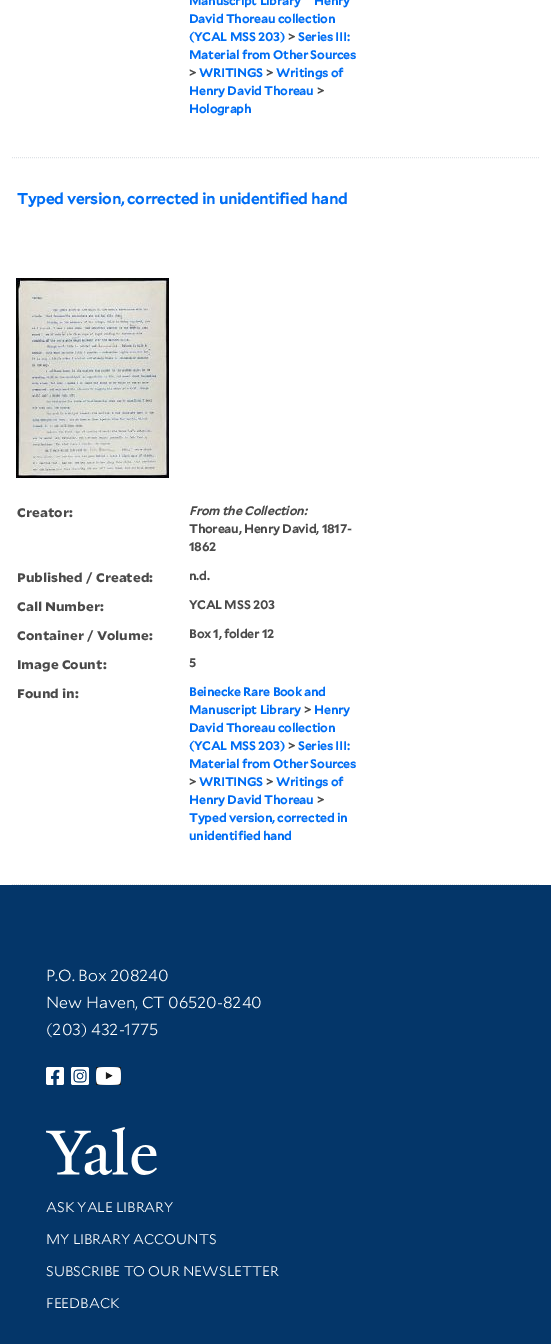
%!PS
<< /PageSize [551 1344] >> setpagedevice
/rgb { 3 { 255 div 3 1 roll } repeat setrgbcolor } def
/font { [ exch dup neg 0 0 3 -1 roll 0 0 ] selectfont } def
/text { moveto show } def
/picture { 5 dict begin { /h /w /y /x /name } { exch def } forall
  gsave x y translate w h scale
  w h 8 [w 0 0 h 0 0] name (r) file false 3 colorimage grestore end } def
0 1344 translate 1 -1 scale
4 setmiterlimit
255 255 255 rgb
0 0 551 1344 rectfill
222 226 230 rgb
[1 1] 0 setdash
12 157.5 moveto 527 0 rlineto stroke
12 884.5 moveto 527 0 rlineto stroke
(img_01.rgb) 16 278 153 200 picture
4 54 105 rgb
0 885 551 459 rectfill
(img_02.rgb) 46 1067 18 18 picture
(img_03.rgb) 71 1067 18 18 picture
(img_04.rgb) 96 1067 25 18 picture
(img_05.rgb) 46 1127 111 48 picture
/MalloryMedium-Bold 12 font
0 110 245 rgb
(Manuscript Library) 189 5 text
(Henry) 314 5 text
(David Thoreau collection) 189 23 text
(\(YCAL MSS 203\)) 189 41 text
74 74 74 rgb
(>) 288 41 text
0 110 245 rgb
(Series III:) 298 41 text
(Material from Other Sources) 189 59 text
74 74 74 rgb
(>) 189 77 text
0 110 245 rgb
(WRITINGS) 199 77 text
74 74 74 rgb
(>) 266 77 text
0 110 245 rgb
(Writings of) 276 77 text
(Henry David Thoreau) 189 95 text
74 74 74 rgb
(>) 317 95 text
0 110 245 rgb
(Holograph) 189 113 text
/MalloryMedium-Bold 15 font
(Typed version, corrected in unidentified hand) 17 204 text
/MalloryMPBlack-Black 12 font
74 74 74 rgb
(Creator:) 17 517 text
/MalloryMedium-BoldItalic 12 font
(From the Collection:) 189 515 text
/MalloryMedium-Bold 12 font
(Thoreau, Henry David, 1817-) 189 533 text
(1862) 189 551 text
/MalloryMPBlack-Black 12 font
(Published / Created:) 17 582 text
/MalloryMedium-Bold 12 font
(n.d.) 189 580 text
/MalloryMPBlack-Black 12 font
(Call Number:) 17 611 text
/MalloryMedium-Bold 12 font
(YCAL MSS 203) 189 609 text
/MalloryMPBlack-Black 12 font
(Container / Volume:) 17 640 text
/MalloryMedium-Bold 12 font
(Box 1, folder 12) 189 638 text
/MalloryMPBlack-Black 12 font
(Image Count:) 17 669 text
/MalloryMedium-Bold 12 font
(5) 189 667 text
/MalloryMPBlack-Black 12 font
(Found in:) 17 698 text
/MalloryMedium-Bold 12 font
0 110 245 rgb
(Beinecke Rare Book and) 189 696 text
(Manuscript Library) 189 714 text
74 74 74 rgb
(>) 304 714 text
0 110 245 rgb
(Henry) 314 714 text
(David Thoreau collection) 189 732 text
(\(YCAL MSS 203\)) 189 750 text
74 74 74 rgb
(>) 288 750 text
0 110 245 rgb
(Series III:) 298 750 text
(Material from Other Sources) 189 768 text
74 74 74 rgb
(>) 189 786 text
0 110 245 rgb
(WRITINGS) 199 786 text
74 74 74 rgb
(>) 266 786 text
0 110 245 rgb
(Writings of) 276 786 text
(Henry David Thoreau) 189 804 text
74 74 74 rgb
(>) 317 804 text
0 110 245 rgb
(Typed version, corrected in) 189 822 text
(unidentified hand) 189 840 text
/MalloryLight-Light 16 font
255 255 255 rgb
(P.O. Box 208240) 46 981 text
(New Haven, CT 06520-8240) 46 1008 text
(\(203\) 432-1775) 46 1035 text
/MalloryLight-Light 14 font
(ASK YALE LIBRARY) 46 1212 text
(MY LIBRARY ACCOUNTS) 46 1244 text
(SUBSCRIBE TO OUR NEWSLETTER) 46 1276 text
(FEEDBACK) 46 1308 text
showpage
